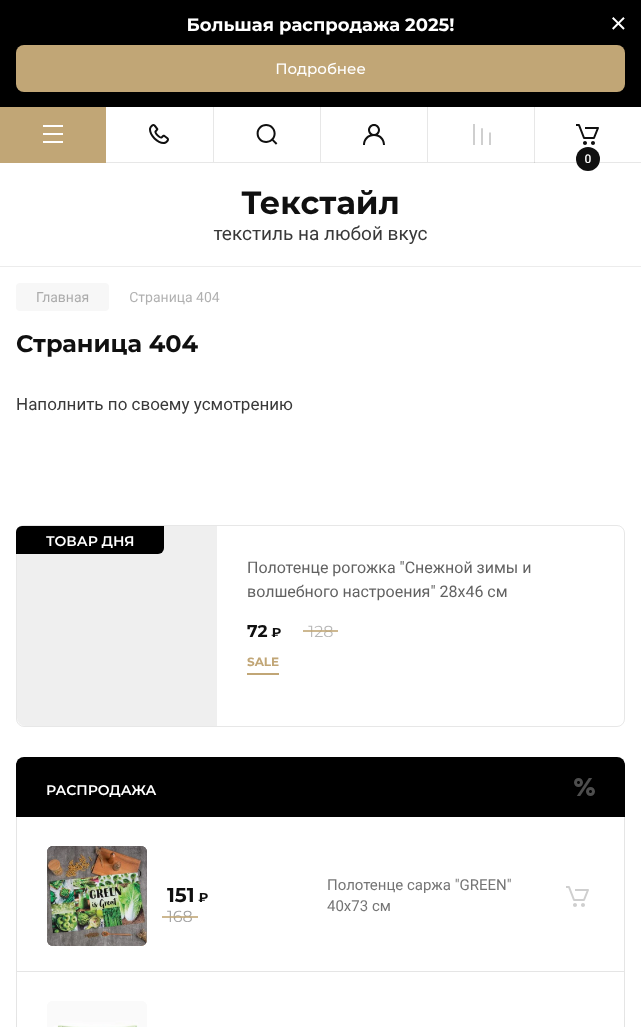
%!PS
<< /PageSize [641 1027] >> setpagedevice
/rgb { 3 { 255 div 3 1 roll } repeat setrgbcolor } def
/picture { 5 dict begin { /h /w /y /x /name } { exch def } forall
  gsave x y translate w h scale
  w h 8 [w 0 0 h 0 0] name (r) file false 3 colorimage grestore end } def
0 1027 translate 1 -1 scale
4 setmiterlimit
255 255 255 rgb
0 0 641 1027 rectfill
(img_01.rgb) 0 0 641 1027 picture
showpage
